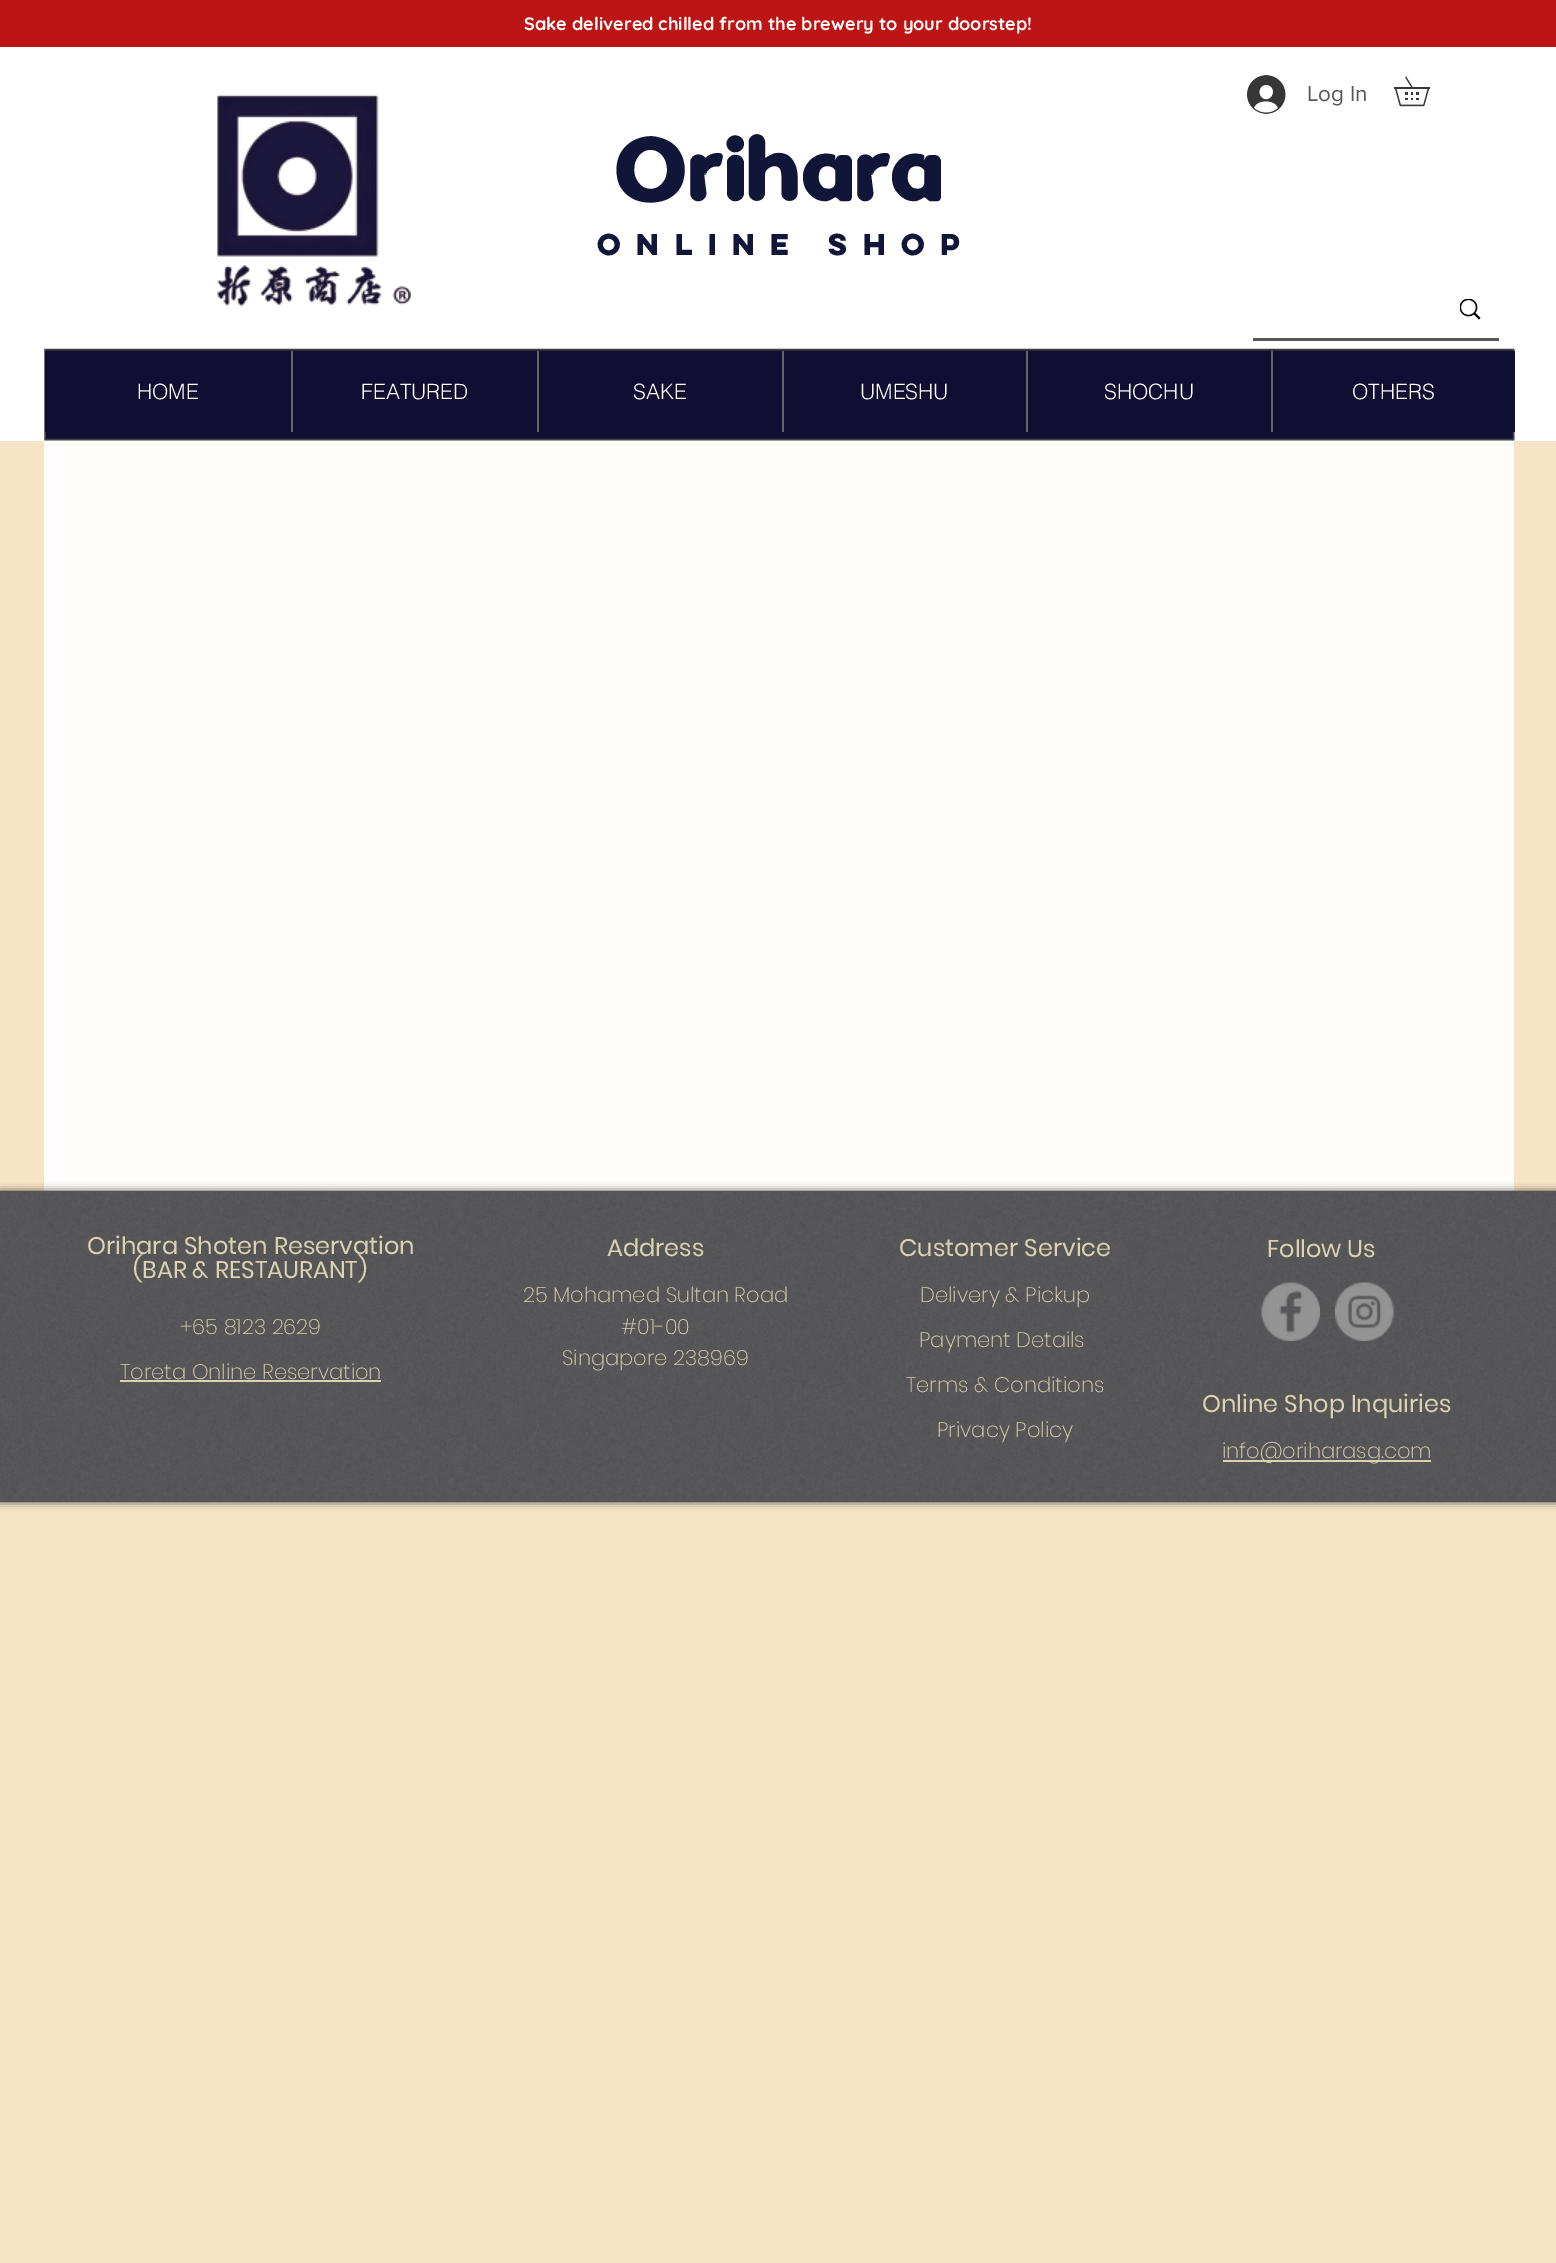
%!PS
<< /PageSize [1556 2263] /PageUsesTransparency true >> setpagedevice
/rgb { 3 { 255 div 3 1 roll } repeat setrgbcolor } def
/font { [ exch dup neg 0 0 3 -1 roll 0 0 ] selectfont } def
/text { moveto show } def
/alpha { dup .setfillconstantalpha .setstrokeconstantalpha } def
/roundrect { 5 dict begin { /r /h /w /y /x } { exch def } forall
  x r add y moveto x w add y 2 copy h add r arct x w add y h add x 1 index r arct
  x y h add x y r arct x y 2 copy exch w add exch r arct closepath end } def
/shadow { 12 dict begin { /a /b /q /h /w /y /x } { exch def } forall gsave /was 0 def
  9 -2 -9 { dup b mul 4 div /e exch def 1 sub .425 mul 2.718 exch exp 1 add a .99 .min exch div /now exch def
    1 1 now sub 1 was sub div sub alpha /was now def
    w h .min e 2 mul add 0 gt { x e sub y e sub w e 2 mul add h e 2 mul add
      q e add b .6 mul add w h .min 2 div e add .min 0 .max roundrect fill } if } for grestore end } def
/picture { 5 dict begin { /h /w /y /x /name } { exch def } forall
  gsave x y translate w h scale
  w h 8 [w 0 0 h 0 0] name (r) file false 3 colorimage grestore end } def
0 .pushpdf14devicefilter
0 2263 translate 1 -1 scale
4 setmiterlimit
247 228 198 rgb
0 0 1556 2263 rectfill
189 21 21 rgb
0 0 1556 47 rectfill
255 255 255 rgb
0 47 1556 394 rectfill
(img_01.rgb) 1247 75 39 39 picture
(img_02.rgb) 1394 76 36 31 picture
(img_03.rgb) 216 94 195 213 picture
87 87 89 rgb
1253 338 246 3 rectfill
(img_04.rgb) 1460 299 21 21 picture
16 14 51 rgb
45 350 1468 89 rectfill
65 65 65 rgb
1.5 setlinewidth
1513.5 349.5 moveto 0 90 rlineto -1468.5 0 rlineto 0 -90 rlineto closepath stroke
16 14 51 rgb
45 351 1470 81 rectfill
98 102 107 rgb
291 351 2 81 rectfill
537 351 2 81 rectfill
782 351 2 81 rectfill
1026 351 2 81 rectfill
1271 351 2 81 rectfill
254 253 251 rgb
44 441 1470 750 rectfill
0 0 0 rgb
0 1191 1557 311 0 4 0.7 shadow
87 87 89 rgb
0 1191 1556 311 rectfill
(img_05.rgb) 0 1191 1556 310 picture
219 210 178 rgb
120 1380 261 2 rectfill
(img_06.rgb) 1261 1282 59 59 picture
(img_07.rgb) 1335 1282 59 59 picture
1223 1460 208 2 rectfill
/Quicksand-Bold 18 font
255 255 255 rgb
(Sake delivered chilled from the brewery to your doorstep!) 524 30 text
/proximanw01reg-Regular 22.5 font
87 87 89 rgb
(Log In) 1307 101 text
/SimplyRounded-Bold 93 font
17 21 56 rgb
(Orihara) 614 200 text
/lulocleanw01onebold-Bold 27 font
597 255 moveto 9.5 0 (Online Shop) ashow
/helvetica-Light 21 font
255 255 255 rgb
(HOME) 137 399 text
(FEATURED) 361 399 text
(SAKE) 633 399 text
(UMESHU) 860 399 text
(SHOCHU) 1104 399 text
(OTHERS) 1352 399 text
/Poppins-Regular 24 font
219 210 178 rgb
(Orihara Shoten Reservation) 87 1254 text
(\(BAR & RESTAURANT\)) 133 1278 text
/Poppins-ExtraLight 21 font
(+65 8123 2629) 180 1334 text
(Toreta Online Reservation) 120 1379 text
/Poppins-Regular 24 font
(Address) 607 1256 text
/Poppins-ExtraLight 21 font
(25 Mohamed Sultan Road) 523 1302 text
(#01-00) 621 1334 text
(Singapore 238969) 562 1365 text
/Poppins-Regular 24 font
(Customer Service) 899 1256 text
/Poppins-ExtraLight 21 font
(Delivery & Pickup) 920 1302 text
(Payment Details) 919 1347 text
(Terms & Conditions) 906 1392 text
(Privacy Policy) 937 1437 text
/Poppins-Regular 24 font
(Follow Us) 1267 1257 text
(Online Shop Inquiries) 1202 1412 text
/Poppins-ExtraLight 21 font
(info@oriharasg.com) 1222 1458 text
.poppdf14devicefilter showpage
